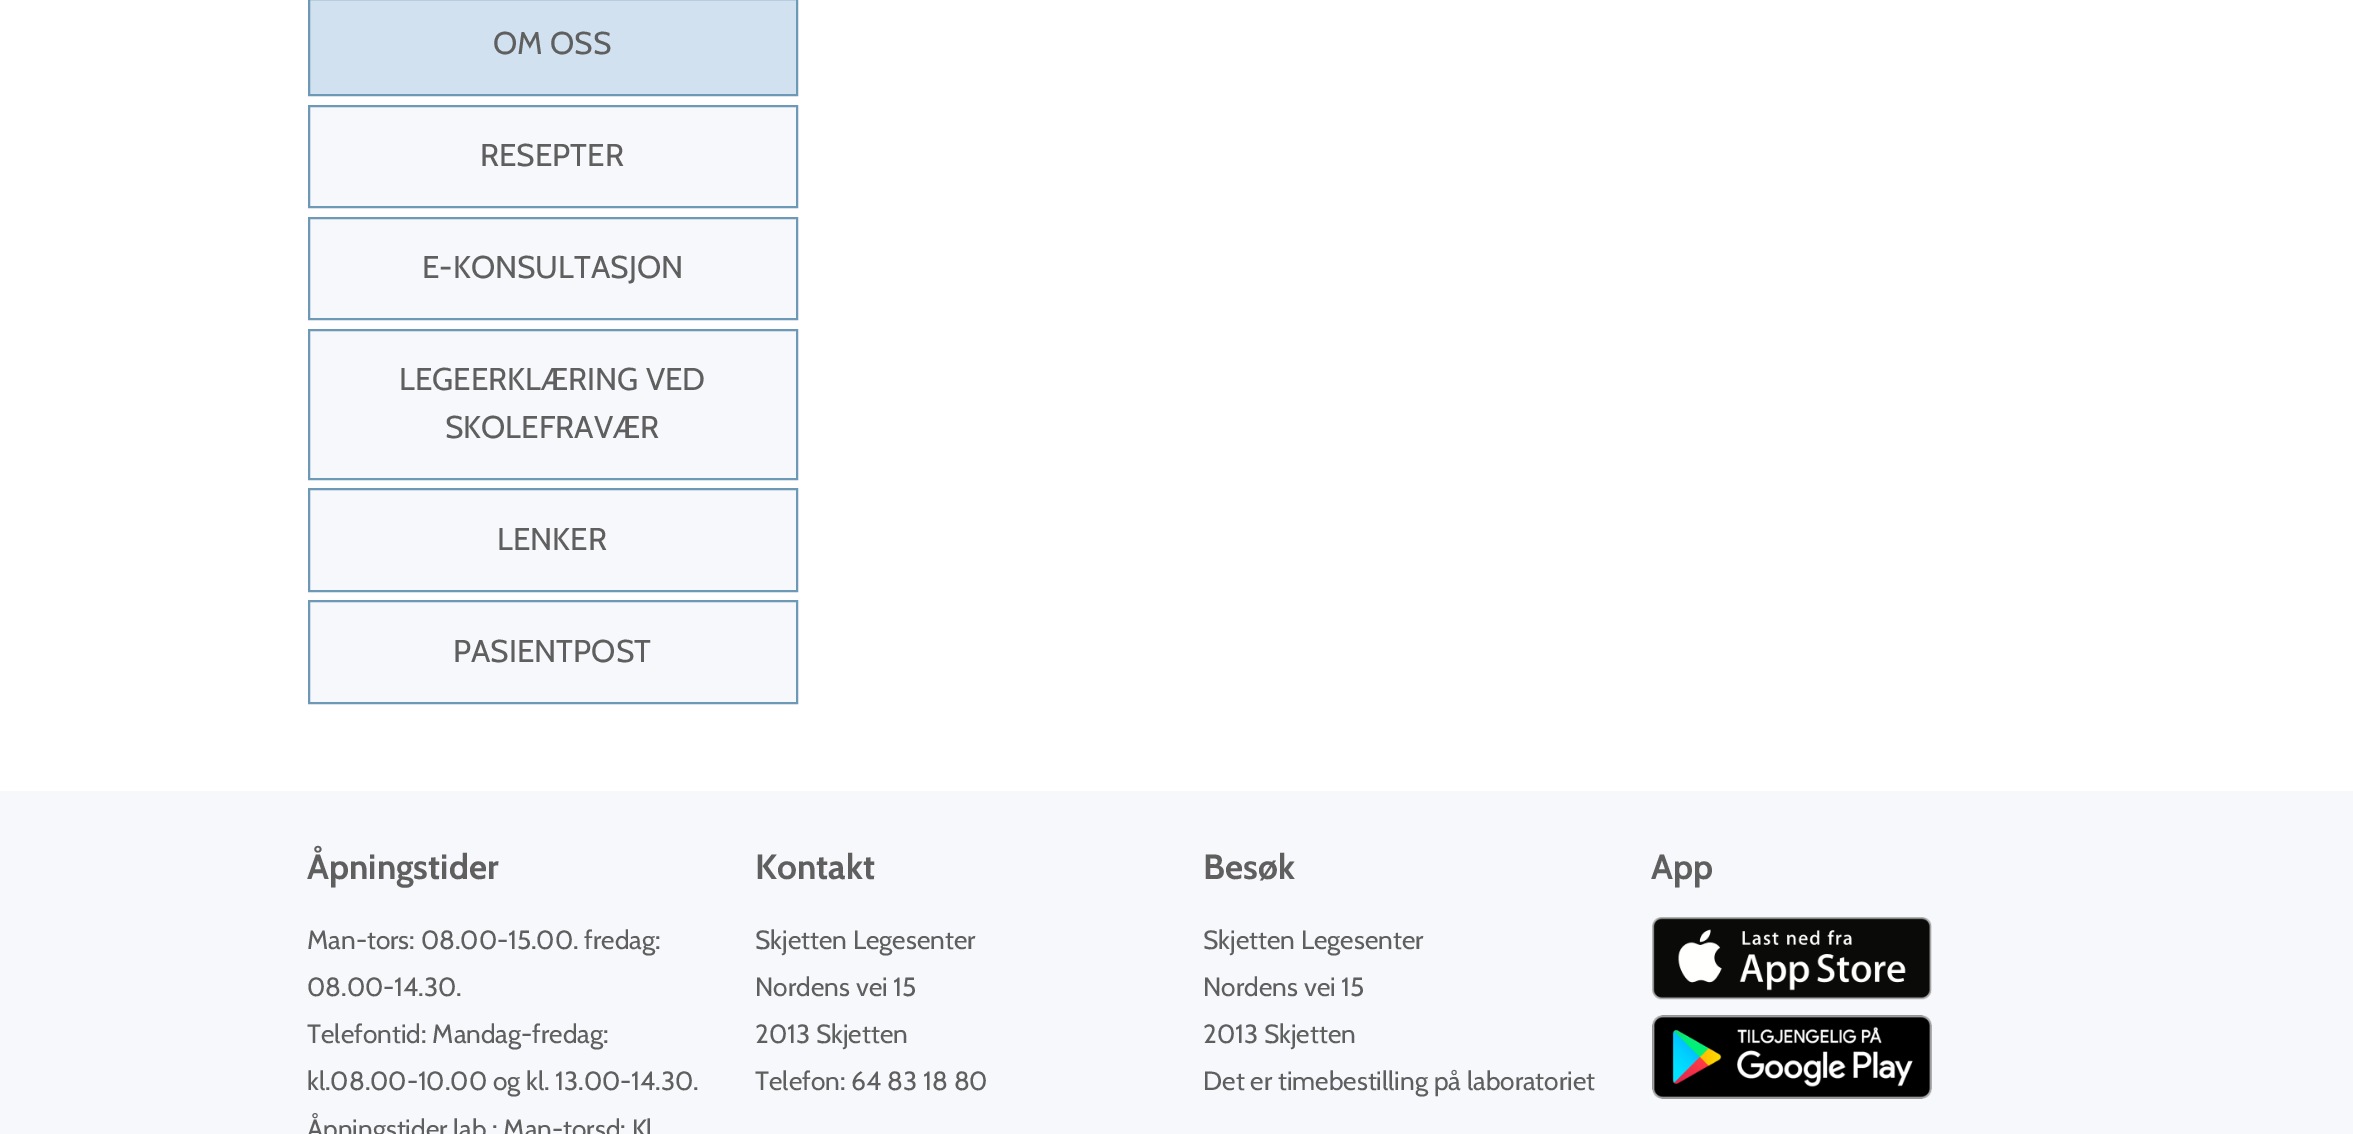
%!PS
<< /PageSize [2353 1134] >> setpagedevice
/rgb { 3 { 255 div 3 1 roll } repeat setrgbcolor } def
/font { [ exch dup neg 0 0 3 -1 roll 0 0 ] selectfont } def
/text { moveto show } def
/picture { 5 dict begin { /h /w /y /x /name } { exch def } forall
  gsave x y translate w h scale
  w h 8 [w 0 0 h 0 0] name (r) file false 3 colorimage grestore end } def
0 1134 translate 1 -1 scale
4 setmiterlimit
255 255 255 rgb
0 0 2353 1134 rectfill
209 225 239 rgb
309 -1 moveto 488 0 rlineto 0 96 rlineto -488 0 rlineto closepath gsave fill grestore
109 153 182 rgb
2 setlinewidth
stroke
246 248 251 rgb
309 106 moveto 488 0 rlineto 0 101 rlineto -488 0 rlineto closepath gsave fill grestore
109 153 182 rgb
stroke
246 248 251 rgb
309 218 moveto 488 0 rlineto 0 101 rlineto -488 0 rlineto closepath gsave fill grestore
109 153 182 rgb
stroke
246 248 251 rgb
309 330 moveto 488 0 rlineto 0 149 rlineto -488 0 rlineto closepath gsave fill grestore
109 153 182 rgb
stroke
246 248 251 rgb
309 489 moveto 488 0 rlineto 0 102 rlineto -488 0 rlineto closepath gsave fill grestore
109 153 182 rgb
stroke
246 248 251 rgb
309 601 moveto 488 0 rlineto 0 102 rlineto -488 0 rlineto closepath gsave fill grestore
109 153 182 rgb
stroke
246 248 251 rgb
0 791 2353 343 rectfill
(img_01.rgb) 1652 917 280 83 picture
(img_02.rgb) 1652 1015 280 84 picture
/Cabin-Regular 31.5 font
95 95 95 rgb
(OM OSS) 493 54 text
(RESEPTER) 480 166 text
(E-KONSULTASJON) 422 278 text
(LEGEERKLÆRING VED) 399 390 text
(SKOLEFRAVÆR) 445 438 text
(LENKER) 497 550 text
(PASIENTPOST) 453 662 text
/Cabin-Bold 35 font
(Åpningstider) 307 879 text
/Cabin-Regular 26.25 font
(Man-tors: 08.00-15.00. fredag:) 307 949 text
(08.00-14.30.) 307 996 text
(Telefontid: Mandag-fredag:) 307 1043 text
(kl.08.00-10.00 og kl. 13.00-14.30.) 307 1090 text
(Åpningstider lab.: Man-torsd: Kl) 307 1138 text
/Cabin-Bold 35 font
(Kontakt) 755 879 text
/Cabin-Regular 26.25 font
(Skjetten Legesenter) 755 949 text
(Nordens vei 15) 755 996 text
(2013 Skjetten) 755 1043 text
(Telefon: 64 83 18 80) 755 1090 text
/Cabin-Bold 35 font
(Besøk) 1203 879 text
/Cabin-Regular 26.25 font
(Skjetten Legesenter) 1203 949 text
(Nordens vei 15) 1203 996 text
(2013 Skjetten) 1203 1043 text
(Det er timebestilling på laboratoriet) 1203 1090 text
/Cabin-Bold 35 font
(App) 1651 879 text
showpage
